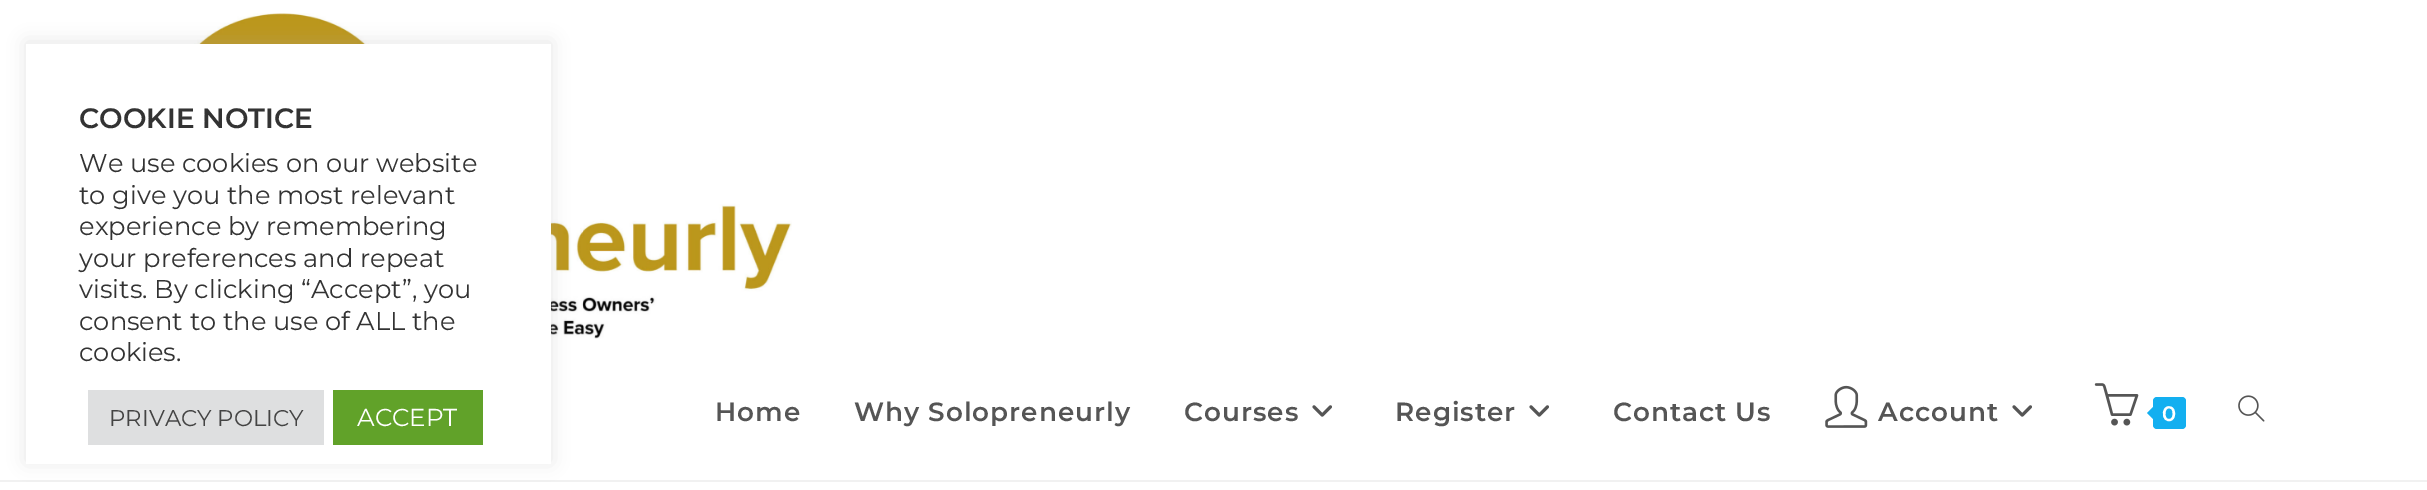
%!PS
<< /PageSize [2427 490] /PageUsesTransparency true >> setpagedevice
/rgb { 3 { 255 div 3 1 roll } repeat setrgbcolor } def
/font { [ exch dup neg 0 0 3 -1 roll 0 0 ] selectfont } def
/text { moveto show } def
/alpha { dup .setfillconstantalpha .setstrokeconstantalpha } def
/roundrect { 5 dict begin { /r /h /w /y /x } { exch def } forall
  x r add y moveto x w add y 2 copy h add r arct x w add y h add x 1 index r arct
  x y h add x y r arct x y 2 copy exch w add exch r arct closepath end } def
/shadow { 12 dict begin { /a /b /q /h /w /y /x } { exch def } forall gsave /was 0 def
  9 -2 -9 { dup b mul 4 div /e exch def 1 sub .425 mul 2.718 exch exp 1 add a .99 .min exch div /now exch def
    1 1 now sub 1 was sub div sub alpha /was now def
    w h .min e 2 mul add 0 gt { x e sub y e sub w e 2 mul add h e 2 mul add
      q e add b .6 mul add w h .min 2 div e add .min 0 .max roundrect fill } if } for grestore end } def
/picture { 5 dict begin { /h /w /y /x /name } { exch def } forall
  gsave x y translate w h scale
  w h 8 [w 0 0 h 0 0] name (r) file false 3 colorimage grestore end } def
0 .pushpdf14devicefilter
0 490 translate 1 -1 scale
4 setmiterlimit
255 255 255 rgb
0 0 2427 490 rectfill
241 241 241 rgb
0 480 2427 2 rectfill
(img_01.rgb) 170 13 622 326 picture
172 171 171 rgb
26 42 525 420 0 9 0.3 shadow
255 255 255 rgb
26 44 525 420 rectfill
222 223 224 rgb
88 390 236 55 rectfill
97 162 41 rgb
333 390 150 55 rectfill
(img_02.rgb) 1312 405 20 12 picture
(img_02.rgb) 1529 405 20 12 picture
(img_03.rgb) 1825 385 43 43 picture
(img_02.rgb) 2012 405 20 12 picture
(img_04.rgb) 2094 383 45 43 picture
19 175 240 rgb
2153 397 33 32 4 roundrect fill
2156 404 moveto 0 18 rlineto -9 -9 rlineto closepath fill
(img_05.rgb) 2238 395 27 27 picture
/Montserrat-Thin 28 font
51 51 51 rgb
(COOKIE NOTICE) 79 128 text
/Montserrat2-Thin 25.7 font
(We use cookies on our website) 79 172 text
(to give you the most relevant) 79 204 text
(experience by remembering) 79 235 text
(your preferences and repeat) 79 267 text
(visits. By clicking “Accept”, you) 79 298 text
(consent to the use of ALL the) 79 330 text
(cookies.) 79 361 text
/Montserrat2-Thin 22.75 font
68 68 68 rgb
(PRIVACY POLICY) 109 426 text
/Montserrat2-Thin 24.5 font
255 255 255 rgb
(ACCEPT) 357 426 text
/Montserrat-Thin 26.25 font
85 85 85 rgb
715 421 moveto 1 0 (Home) ashow
854 421 moveto 1 0 (Why Solopreneurly) ashow
1184 421 moveto 1 0 (Courses) ashow
1395 421 moveto 1 0 (Register) ashow
1613 421 moveto 1 0 (Contact Us) ashow
1878 421 moveto 1 0 (Account) ashow
/Montserrat-Thin 21 font
255 255 255 rgb
(0) 2162 421 text
.poppdf14devicefilter showpage
